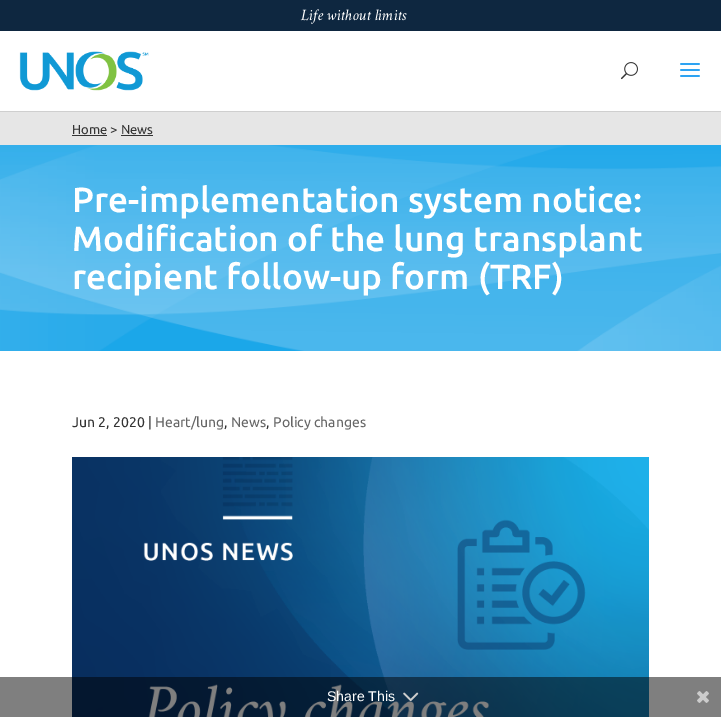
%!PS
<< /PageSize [721 717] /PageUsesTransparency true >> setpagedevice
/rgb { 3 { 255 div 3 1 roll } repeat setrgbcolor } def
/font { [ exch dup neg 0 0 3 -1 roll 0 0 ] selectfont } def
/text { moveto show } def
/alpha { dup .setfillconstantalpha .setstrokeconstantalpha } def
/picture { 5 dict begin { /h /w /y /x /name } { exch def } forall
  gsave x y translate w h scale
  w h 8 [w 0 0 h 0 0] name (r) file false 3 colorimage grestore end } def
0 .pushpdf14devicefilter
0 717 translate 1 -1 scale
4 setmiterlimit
255 255 255 rgb
0 0 721 717 rectfill
14 39 64 rgb
0 0 721 31 rectfill
207 207 207 rgb
0 111 721 1 rectfill
(img_01.rgb) 19 51 130 40 picture
(img_02.rgb) 621 62 17 18 picture
(img_03.rgb) 680 63 20 14 picture
230 230 230 rgb
0 112 721 33 rectfill
51 51 51 rgb
72 135 35 1 rectfill
121 135 32 1 rectfill
(img_04.rgb) 0 145 721 206 picture
(img_05.rgb) 72 457 577 260 picture
0.5 alpha
0 0 0 rgb
0 677 721 40 rectfill
1 alpha
(img_06.rgb) 403 692 16 10 picture
(img_07.rgb) 697 691 12 12 picture
/CrimsonText-Italic 14 font
255 255 255 rgb
(Life without limits) 301 20 text
/Ubuntu-Regular 13 font
51 51 51 rgb
(Home > News) 72 134 text
/Ubuntu-Medium 35 font
255 255 255 rgb
(Pre-implementation system notice:) 72 212 text
(Modification of the lung transplant) 72 251 text
(recipient follow-up form \(TRF\)) 72 289 text
/Ubuntu-Regular 14 font
51 51 51 rgb
(Jun 2, 2020 |) 72 427 text
102 102 102 rgb
(Heart/lung) 155 427 text
51 51 51 rgb
(,) 224 427 text
102 102 102 rgb
(News) 231 427 text
51 51 51 rgb
(,) 266 427 text
102 102 102 rgb
(Policy changes) 273 427 text
/LiberationSans-Regular 14 font
255 255 255 rgb
(Share This) 327 701 text
.poppdf14devicefilter showpage
